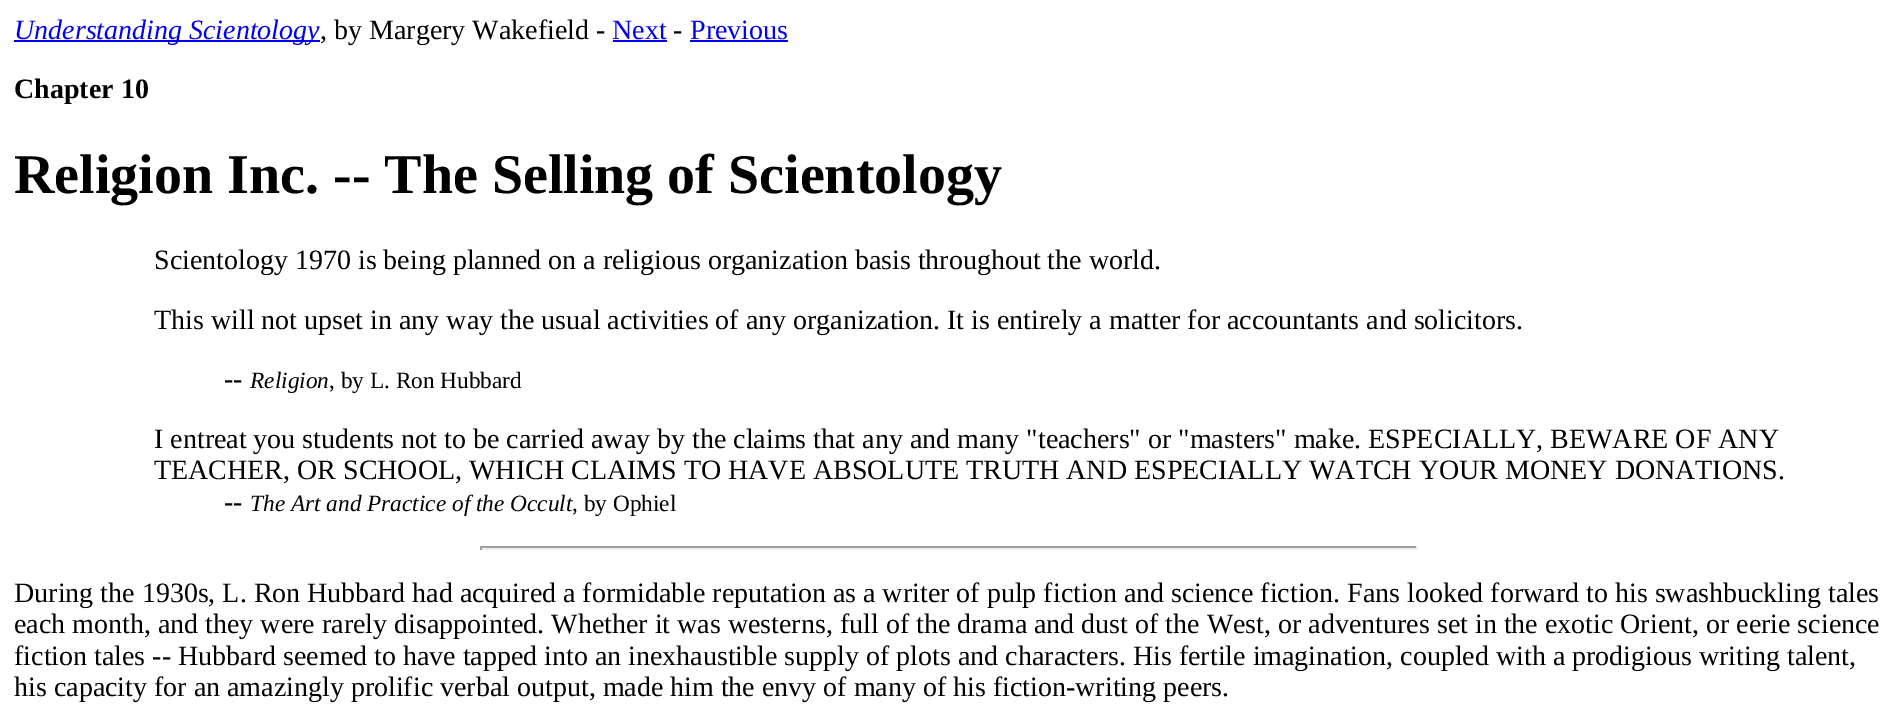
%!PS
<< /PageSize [1897 715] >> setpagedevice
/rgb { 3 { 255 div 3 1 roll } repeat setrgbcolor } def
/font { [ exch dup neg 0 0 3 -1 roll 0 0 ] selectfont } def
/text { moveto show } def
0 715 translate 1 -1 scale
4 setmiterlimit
255 255 255 rgb
0 0 1897 715 rectfill
0 0 238 rgb
14 40 306 2 rectfill
613 40 54 2 rectfill
690 40 98 2 rectfill
159 159 159 rgb
480 546 938 2 rectfill
238 238 238 rgb
1416 546 2 4 rectfill
480 548 938 2 rectfill
159 159 159 rgb
480 546 2 4 rectfill
/LiberationSerif-Italic 28 font
0 0 238 rgb
(Understanding Scientology) 14 39 text
/LiberationSerif-Regular 28 font
0 0 0 rgb
(, by Margery Wakefield -) 320 39 text
0 0 238 rgb
(Next) 612 39 text
0 0 0 rgb
(-) 673 39 text
0 0 238 rgb
(Previous) 690 39 text
/LiberationSerif-Bold 28 font
0 0 0 rgb
(Chapter 10) 14 98 text
/LiberationSerif-Bold 56 font
(Religion Inc. -- The Selling of Scientology) 14 193 text
/LiberationSerif-Regular 28 font
(Scientology 1970 is being planned on a religious organization basis throughout the world.) 154 269 text
(This will not upset in any way the usual activities of any organization. It is entirely a matter for accountants and solicitors.) 154 329 text
(--) 224 388 text
/LiberationSerif-Italic 23.3 font
(Religion) 250 388 text
/LiberationSerif-Regular 23.3 font
(, by L. Ron Hubbard) 329 388 text
/LiberationSerif-Regular 28 font
(I entreat you students not to be carried away by the claims that any and many "teachers" or "masters" make. ESPECIALLY, BEWARE OF ANY) 154 448 text
(TEACHER, OR SCHOOL, WHICH CLAIMS TO HAVE ABSOLUTE TRUTH AND ESPECIALLY WATCH YOUR MONEY DONATIONS.) 154 479 text
(--) 224 511 text
/LiberationSerif-Italic 23.3 font
(The Art and Practice of the Occult) 250 511 text
/LiberationSerif-Regular 23.3 font
(, by Ophiel) 572 511 text
/LiberationSerif-Regular 28 font
(During the 1930s, L. Ron Hubbard had acquired a formidable reputation as a writer of pulp fiction and science fiction. Fans looked forward to his swashbuckling tales) 14 602 text
(each month, and they were rarely disappointed. Whether it was westerns, full of the drama and dust of the West, or adventures set in the exotic Orient, or eerie science) 14 633 text
(fiction tales -- Hubbard seemed to have tapped into an inexhaustible supply of plots and characters. His fertile imagination, coupled with a prodigious writing talent,) 14 665 text
(his capacity for an amazingly prolific verbal output, made him the envy of many of his fiction-writing peers.) 14 696 text
showpage
